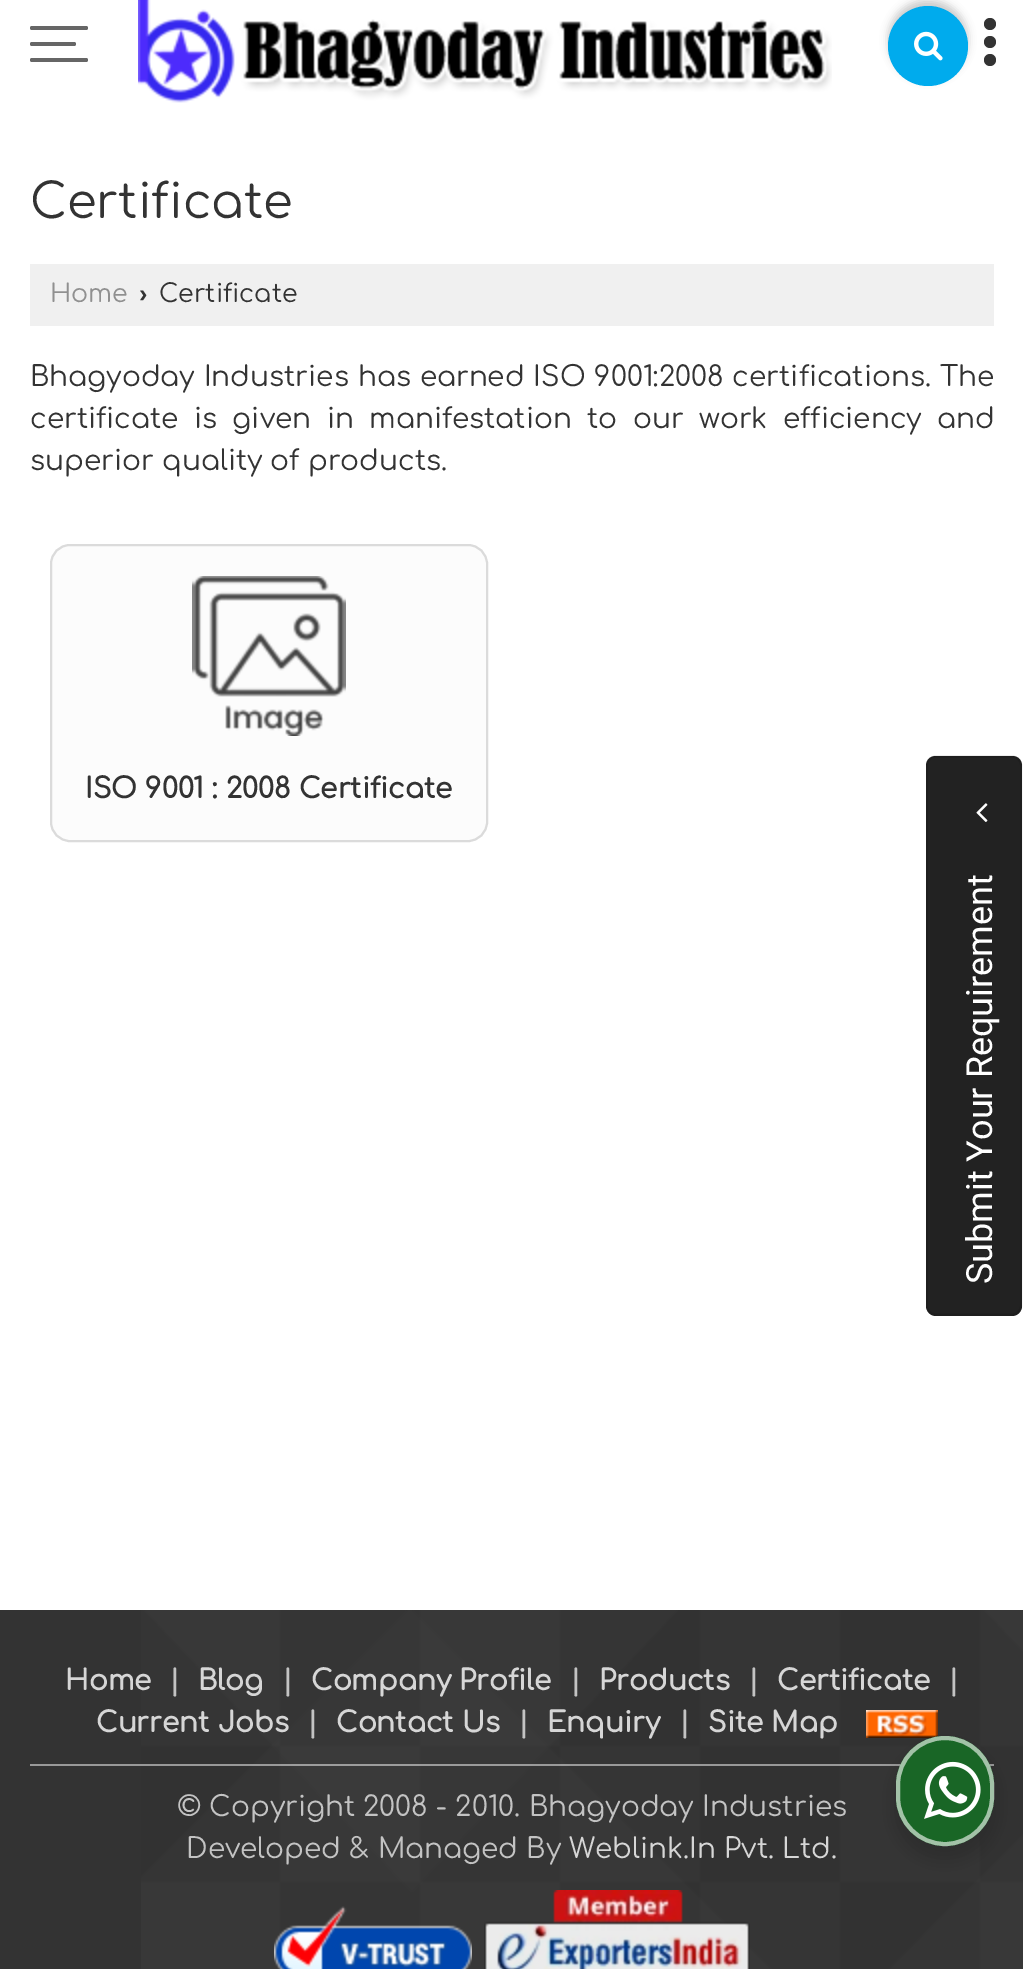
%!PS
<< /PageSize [1023 1969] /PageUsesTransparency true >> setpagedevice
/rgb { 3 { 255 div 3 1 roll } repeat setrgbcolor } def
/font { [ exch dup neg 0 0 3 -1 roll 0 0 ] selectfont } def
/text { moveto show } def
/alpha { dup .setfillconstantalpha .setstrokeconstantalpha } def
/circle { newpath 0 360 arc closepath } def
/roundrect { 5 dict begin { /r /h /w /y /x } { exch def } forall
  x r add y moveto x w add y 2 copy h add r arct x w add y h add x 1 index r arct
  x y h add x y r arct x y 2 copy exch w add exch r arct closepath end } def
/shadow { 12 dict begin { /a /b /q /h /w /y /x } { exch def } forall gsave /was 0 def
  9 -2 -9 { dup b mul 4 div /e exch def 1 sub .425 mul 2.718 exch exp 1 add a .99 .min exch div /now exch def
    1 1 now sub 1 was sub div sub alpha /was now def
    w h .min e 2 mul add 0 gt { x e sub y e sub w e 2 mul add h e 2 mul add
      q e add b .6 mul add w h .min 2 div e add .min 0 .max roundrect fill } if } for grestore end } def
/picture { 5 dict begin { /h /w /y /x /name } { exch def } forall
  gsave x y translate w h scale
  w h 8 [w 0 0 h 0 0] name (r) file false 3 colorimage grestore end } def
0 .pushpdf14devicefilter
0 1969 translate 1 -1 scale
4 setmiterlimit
255 255 255 rgb
0 0 1023 1969 rectfill
102 102 102 rgb
30 26 58 4 2 roundrect fill
30 42 46 4 2 roundrect fill
30 58 58 4 2 roundrect fill
(img_01.rgb) 138 0 694 103 picture
0 0 0 rgb
888 0 80 80 40 4 0.2 shadow
0 171 237 rgb
928 46 40 circle fill
(img_02.rgb) 914 31 29 30 picture
51 51 51 rgb
990 42 6 circle fill
990 24 6 circle fill
990 60 6 circle fill
240 240 240 rgb
30 264 964 62 rectfill
252 252 252 rgb
51 545 436 296 19 roundrect gsave fill grestore
219 219 219 rgb
2 setlinewidth
stroke
(img_03.rgb) 192 576 154 160 picture
51 51 51 rgb
0 1610 1023 359 rectfill
(img_04.rgb) 141 1610 882 359 picture
(img_05.rgb) 866 1710 72 28 picture
0.5 alpha
255 255 255 rgb
30 1764 964 2 rectfill
1 alpha
(img_06.rgb) 274 1906 198 63 picture
(img_07.rgb) 484 1890 266 79 picture
34 34 34 rgb
926 1306 moveto 0 -540 rlineto 0 -6 4 -10 10 -10 rcurveto 76 0 rlineto 6 0 10 4 10 10 rcurveto 0 540 rlineto 0 5 -4 10 -10 10 rcurveto -76 0 rlineto -6 0 -10 -5 -10 -10 rcurveto closepath fill
0.13 alpha
0 0 0 rgb
927 1305.5 moveto 0 -540 rlineto 0 -5 4 -9 9 -9 rcurveto 76 0 rlineto 5 0 9 4 9 9 rcurveto 0 540 rlineto 0 5 -4 9 -9 9 rcurveto -76 0 rlineto -5 0 -9 -4 -9 -9 rcurveto closepath stroke
1 alpha
(img_08.rgb) 976 803 12 19 picture
892 1744 106 118 53 8 0.14 shadow
25 102 38 rgb
896 1736 98 110 49 roundrect fill
0.6 alpha
255 255 255 rgb
4 setlinewidth
898 1738 94 106 47 roundrect stroke
1 alpha
(img_09.rgb) 924 1761 57 58 picture
/Comfortaa-Regular 48 font
51 51 51 rgb
(Certificate) 30 218 text
/Comfortaa-Regular 25.25 font
144 144 144 rgb
(Home) 50 302 text
/LiberationSans-Bold 25.25 font
51 51 51 rgb
(›) 139 302 text
/Comfortaa-Regular 25.25 font
(Certificate) 159 302 text
/Comfortaa-Regular 28 font
30 386 moveto 0.75 0 32 (Bhagyoday Industries has earned ISO 9001:2008 certifications. The) widthshow
30 428 moveto 7.25 0 32 (certificate is given in manifestation to our work efficiency and) widthshow
(superior quality of products.) 30 470 text
/Comfortaa-Bold 28 font
(ISO 9001 : 2008 Certificate) 85 798 text
214 214 214 rgb
(Home) 65 1690 text
195 195 195 rgb
(|) 169 1690 text
214 214 214 rgb
(Blog) 198 1690 text
195 195 195 rgb
(|) 282 1690 text
214 214 214 rgb
(Company Profile) 311 1690 text
195 195 195 rgb
(|) 570 1690 text
214 214 214 rgb
(Products) 599 1690 text
195 195 195 rgb
(|) 748 1690 text
214 214 214 rgb
(Certificate) 777 1690 text
195 195 195 rgb
(|) 948 1690 text
214 214 214 rgb
(Current Jobs) 96 1732 text
195 195 195 rgb
(|) 307 1732 text
214 214 214 rgb
(Contact Us) 336 1732 text
195 195 195 rgb
(|) 518 1732 text
214 214 214 rgb
(Enquiry) 547 1732 text
195 195 195 rgb
(|) 679 1732 text
214 214 214 rgb
(Site Map) 708 1732 text
/Comfortaa-Regular 28 font
195 195 195 rgb
(© Copyright 2008 - 2010.) 177 1816 text
(Bhagyoday Industries) 529 1816 text
(Developed & Managed By) 186 1858 text
214 214 214 rgb
(Weblink.In Pvt. Ltd.) 569 1858 text
/Roboto-Regular 36 font
255 255 255 rgb
gsave 992 1284 translate -90 rotate 0 0 moveto (Submit Your Requirement) show grestore
.poppdf14devicefilter showpage
